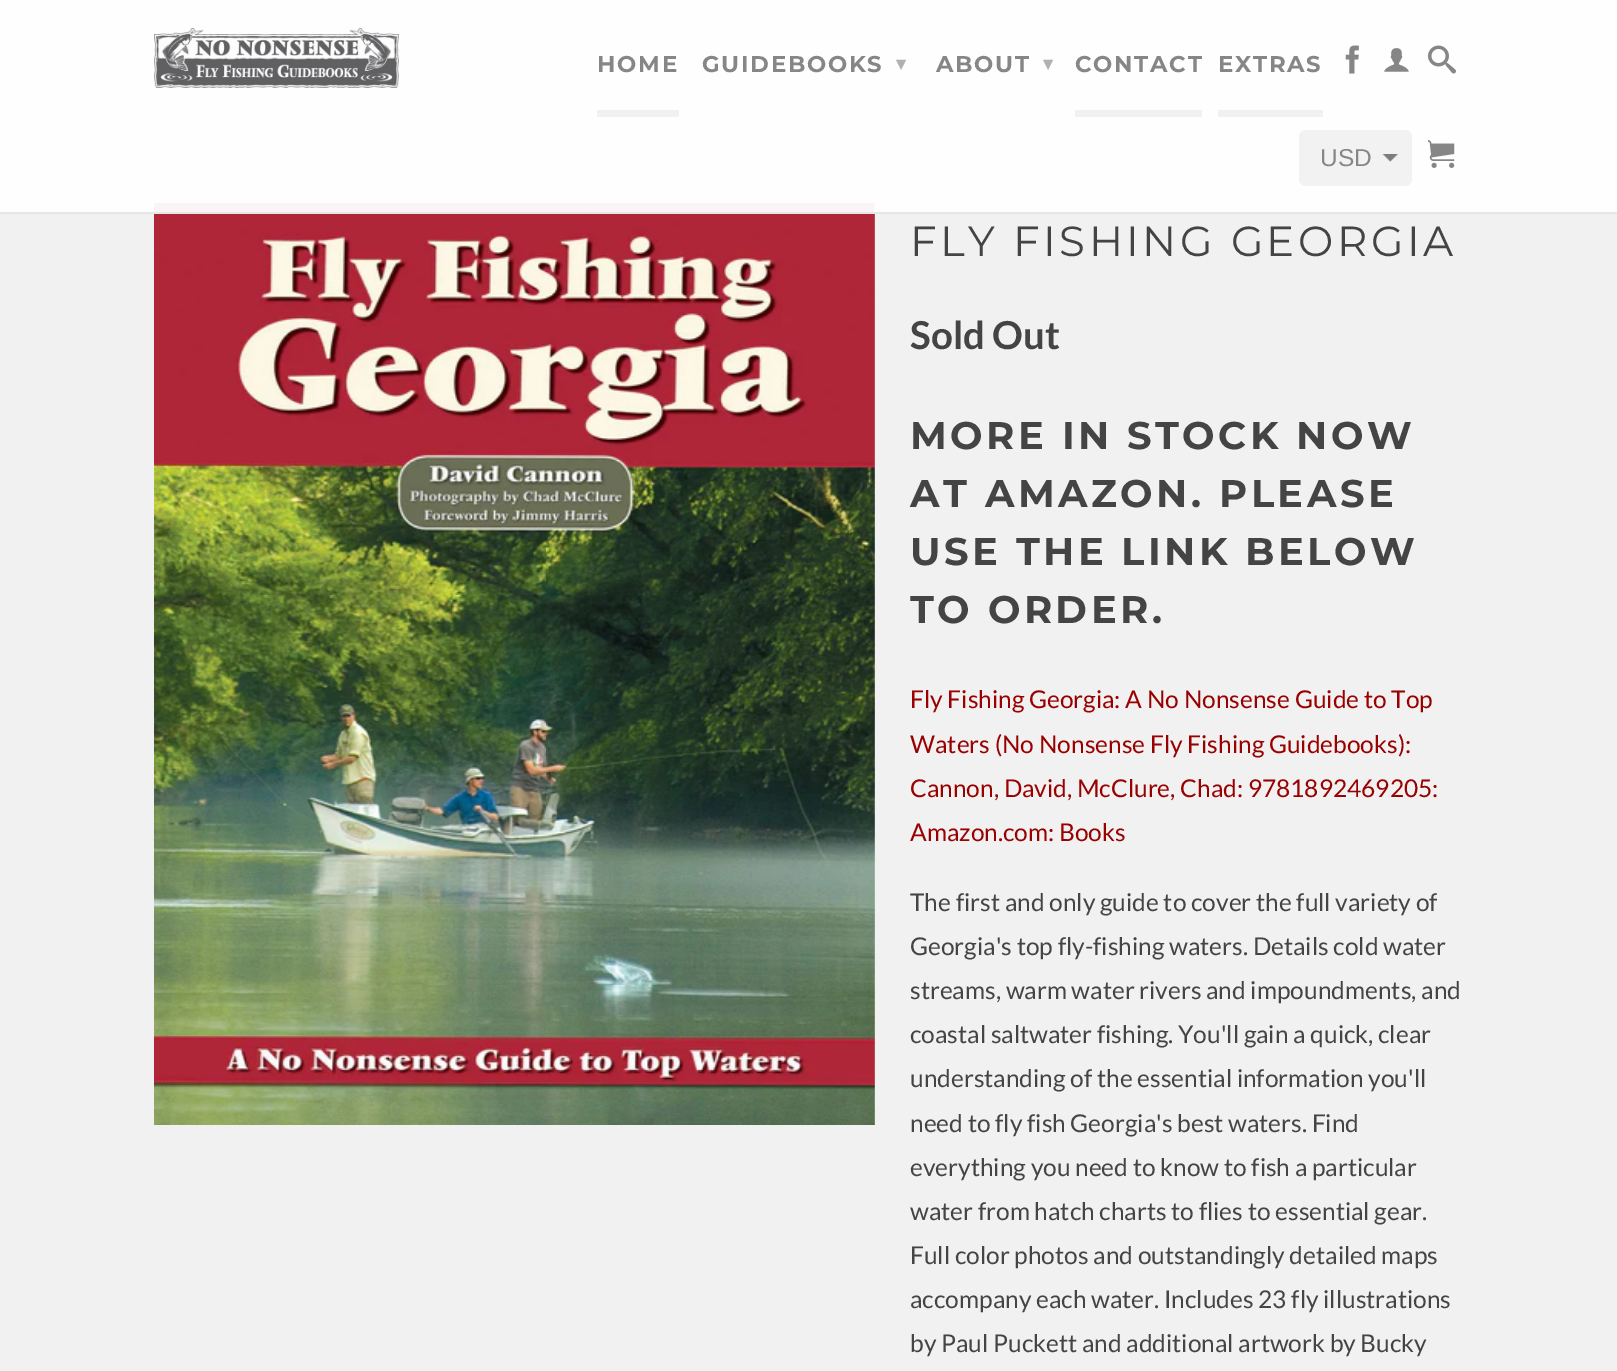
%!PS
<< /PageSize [1617 1371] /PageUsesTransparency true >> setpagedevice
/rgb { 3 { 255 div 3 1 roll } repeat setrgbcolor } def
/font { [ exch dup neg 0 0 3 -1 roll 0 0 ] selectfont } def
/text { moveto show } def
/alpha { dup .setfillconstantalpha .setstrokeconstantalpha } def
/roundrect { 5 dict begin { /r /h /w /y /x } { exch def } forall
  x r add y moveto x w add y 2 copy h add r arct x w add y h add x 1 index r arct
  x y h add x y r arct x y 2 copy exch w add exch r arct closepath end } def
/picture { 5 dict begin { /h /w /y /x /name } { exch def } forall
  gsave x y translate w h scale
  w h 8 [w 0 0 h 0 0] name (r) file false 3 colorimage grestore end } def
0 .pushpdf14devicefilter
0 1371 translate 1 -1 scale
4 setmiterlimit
241 241 241 rgb
0 0 1617 1371 rectfill
(img_07.rgb) 154 203 721 922 picture
0.95 alpha
255 255 255 rgb
0 0 1617 214 rectfill
229 229 229 rgb
0 212 1617 2 rectfill
1 alpha
(img_01.rgb) 154 28 245 60 picture
241 241 241 rgb
597 110 82 7 rectfill
1075 110 127 7 rectfill
1218 110 105 7 rectfill
(img_02.rgb) 1345 45 14 29 picture
(img_03.rgb) 1384 48 25 24 picture
(img_04.rgb) 1428 45 28 29 picture
0.95 alpha
1299 130 113 56 7 roundrect fill
1 alpha
(img_05.rgb) 1382 154 17 8 picture
(img_06.rgb) 1428 140 27 28 picture
/Montserrat-Bold 22.75 font
134 134 134 rgb
597 72 moveto 1.75 0 (HOME) ashow
702 72 moveto 1.75 0 (GUIDEBOOKS) ashow
/DejaVuSans-Bold 19 font
177 177 177 rgb
896 70 moveto 1.75 0 (▾) ashow
/Montserrat-Bold 22.75 font
134 134 134 rgb
936 72 moveto 1.75 0 (ABOUT) ashow
/DejaVuSans-Bold 19 font
177 177 177 rgb
1043 70 moveto 1.75 0 (▾) ashow
/Montserrat-Bold 22.75 font
134 134 134 rgb
1075 72 moveto 1.75 0 (CONTACT) ashow
1218 72 moveto 1.75 0 (EXTRAS) ashow
/LiberationSans-Regular 24.5 font
(USD) 1320 166 text
/Montserrat-Regular 42 font
68 68 68 rgb
910 256 moveto 3.5 0 (FLY FISHING GEORGIA) ashow
/Lato-Bold 38.5 font
(Sold Out) 910 349 text
/Montserrat-Bold 38.5 font
910 449 moveto 3.5 0 (MORE IN STOCK NOW) ashow
910 507 moveto 3.5 0 (AT AMAZON. PLEASE) ashow
910 565 moveto 3.5 0 (USE THE LINK BELOW) ashow
910 623 moveto 3.5 0 (TO ORDER.) ashow
/Lato-Regular 24.5 font
153 0 0 rgb
(Fly Fishing Georgia: A No Nonsense Guide to Top) 910 708 text
(Waters \(No Nonsense Fly Fishing Guidebooks\):) 910 753 text
(Cannon, David, McClure, Chad: 9781892469205:) 910 797 text
(Amazon.com: Books) 910 841 text
68 68 68 rgb
(The first and only guide to cover the full variety of) 910 911 text
(Georgia's top fly-fishing waters. Details cold water) 910 955 text
(streams, warm water rivers and impoundments, and) 910 999 text
(coastal saltwater fishing. You'll gain a quick, clear) 910 1043 text
(understanding of the essential information you'll) 910 1087 text
(need to fly fish Georgia's best waters. Find) 910 1132 text
(everything you need to know to fish a particular) 910 1176 text
(water from hatch charts to flies to essential gear.) 910 1220 text
(Full color photos and outstandingly detailed maps) 910 1264 text
(accompany each water. Includes 23 fly illustrations) 910 1308 text
(by Paul Puckett and additional artwork by Bucky) 910 1352 text
.poppdf14devicefilter showpage
